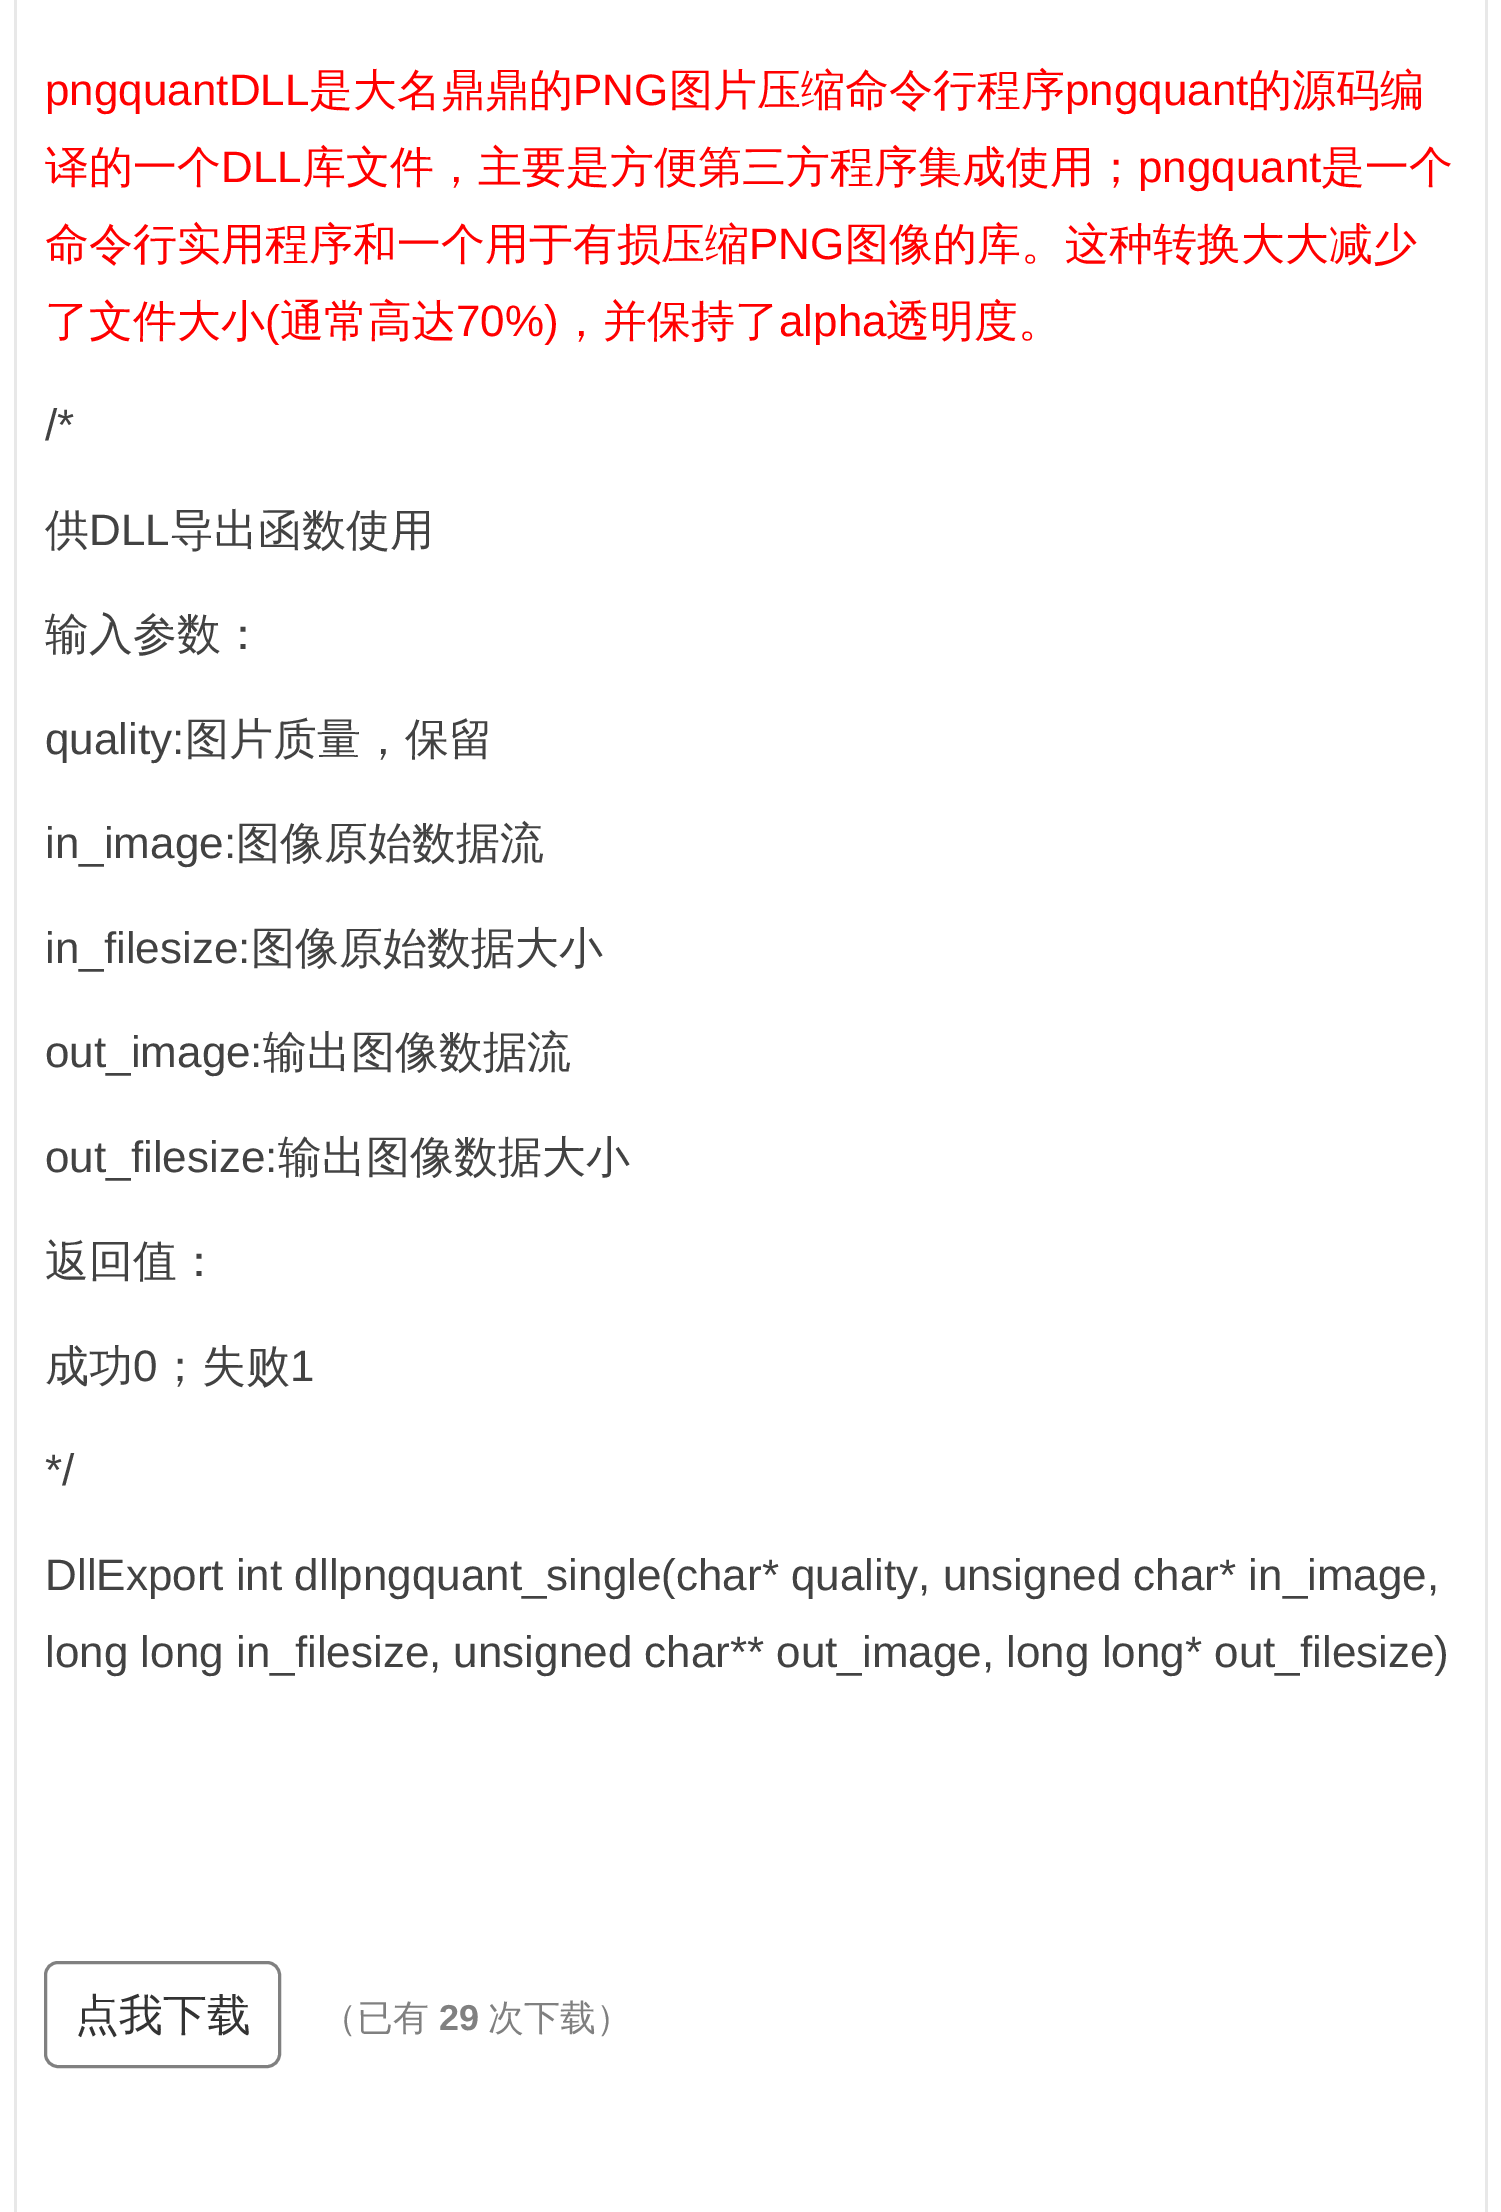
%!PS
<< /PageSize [1501 2212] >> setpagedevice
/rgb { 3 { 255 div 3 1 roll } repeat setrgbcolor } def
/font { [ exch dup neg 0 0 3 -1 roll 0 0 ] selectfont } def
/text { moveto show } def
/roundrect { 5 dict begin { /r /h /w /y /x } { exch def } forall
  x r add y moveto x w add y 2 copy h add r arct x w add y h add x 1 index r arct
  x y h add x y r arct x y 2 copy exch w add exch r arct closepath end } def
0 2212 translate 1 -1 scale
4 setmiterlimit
255 255 255 rgb
0 0 1501 2212 rectfill
232 232 232 rgb
1485 0 3 2212 rectfill
14 0 3 2212 rectfill
128 128 128 rgb
3 setlinewidth
45.5 1962.5 234 104 12.5 roundrect stroke
/LiberationSans-Regular 44 font
255 0 0 rgb
(pngquantDLL) 45 105 text
/WenQuanYiZenHei-Medium 44 font
(是大名鼎鼎的) 309 105 text
/LiberationSans-Regular 44 font
(PNG) 573 105 text
/WenQuanYiZenHei-Medium 44 font
(图片压缩命令行程序) 669 105 text
/LiberationSans-Regular 44 font
(pngquant) 1065 105 text
/WenQuanYiZenHei-Medium 44 font
(的源码编) 1248 105 text
(译的一个) 45 182 text
/LiberationSans-Regular 44 font
(DLL) 221 182 text
/WenQuanYiZenHei-Medium 44 font
(库文件，主要是方便第三方程序集成使用；) 302 182 text
/LiberationSans-Regular 44 font
(pngquant) 1138 182 text
/WenQuanYiZenHei-Medium 44 font
(是一个) 1321 182 text
(命令行实用程序和一个用于有损压缩) 45 259 text
/LiberationSans-Regular 44 font
(PNG) 749 259 text
/WenQuanYiZenHei-Medium 44 font
(图像的库。这种转换大大减少) 845 259 text
(了文件大小) 45 336 text
/LiberationSans-Regular 44 font
(\() 265 336 text
/WenQuanYiZenHei-Medium 44 font
(通常高达) 280 336 text
/LiberationSans-Regular 44 font
(70%\)) 456 336 text
/WenQuanYiZenHei-Medium 44 font
(，并保持了) 559 336 text
/LiberationSans-Regular 44 font
(alpha) 779 336 text
/WenQuanYiZenHei-Medium 44 font
(透明度。) 886 336 text
/LiberationSans-Regular 44 font
66 66 66 rgb
(/*) 45 440 text
/WenQuanYiZenHei-Medium 44 font
(供) 45 545 text
/LiberationSans-Regular 44 font
(DLL) 89 545 text
/WenQuanYiZenHei-Medium 44 font
(导出函数使用) 170 545 text
(输入参数：) 45 649 text
/LiberationSans-Regular 44 font
(quality:) 45 754 text
/WenQuanYiZenHei-Medium 44 font
(图片质量，保留) 185 754 text
/LiberationSans-Regular 44 font
(in_image:) 45 858 text
/WenQuanYiZenHei-Medium 44 font
(图像原始数据流) 236 858 text
/LiberationSans-Regular 44 font
(in_filesize:) 45 963 text
/WenQuanYiZenHei-Medium 44 font
(图像原始数据大小) 251 963 text
/LiberationSans-Regular 44 font
(out_image:) 45 1067 text
/WenQuanYiZenHei-Medium 44 font
(输出图像数据流) 263 1067 text
/LiberationSans-Regular 44 font
(out_filesize:) 45 1172 text
/WenQuanYiZenHei-Medium 44 font
(输出图像数据大小) 278 1172 text
(返回值：) 45 1276 text
(成功) 45 1381 text
/LiberationSans-Regular 44 font
(0) 133 1381 text
/WenQuanYiZenHei-Medium 44 font
(；失败) 158 1381 text
/LiberationSans-Regular 44 font
(1) 290 1381 text
(*/) 45 1485 text
(DllExport int dllpngquant_single\(char* quality, unsigned char* in_image,) 45 1590 text
(long long in_filesize, unsigned char** out_image, long long* out_filesize\)) 45 1667 text
/WenQuanYiZenHei-Medium 44 font
51 51 51 rgb
(点我下载) 75 2030 text
/WenQuanYiZenHei-Medium 36 font
128 128 128 rgb
(（已有) 321 2030 text
/LiberationSans-Bold 36 font
(29) 439 2030 text
/WenQuanYiZenHei-Medium 36 font
(次下载）) 488 2030 text
showpage
